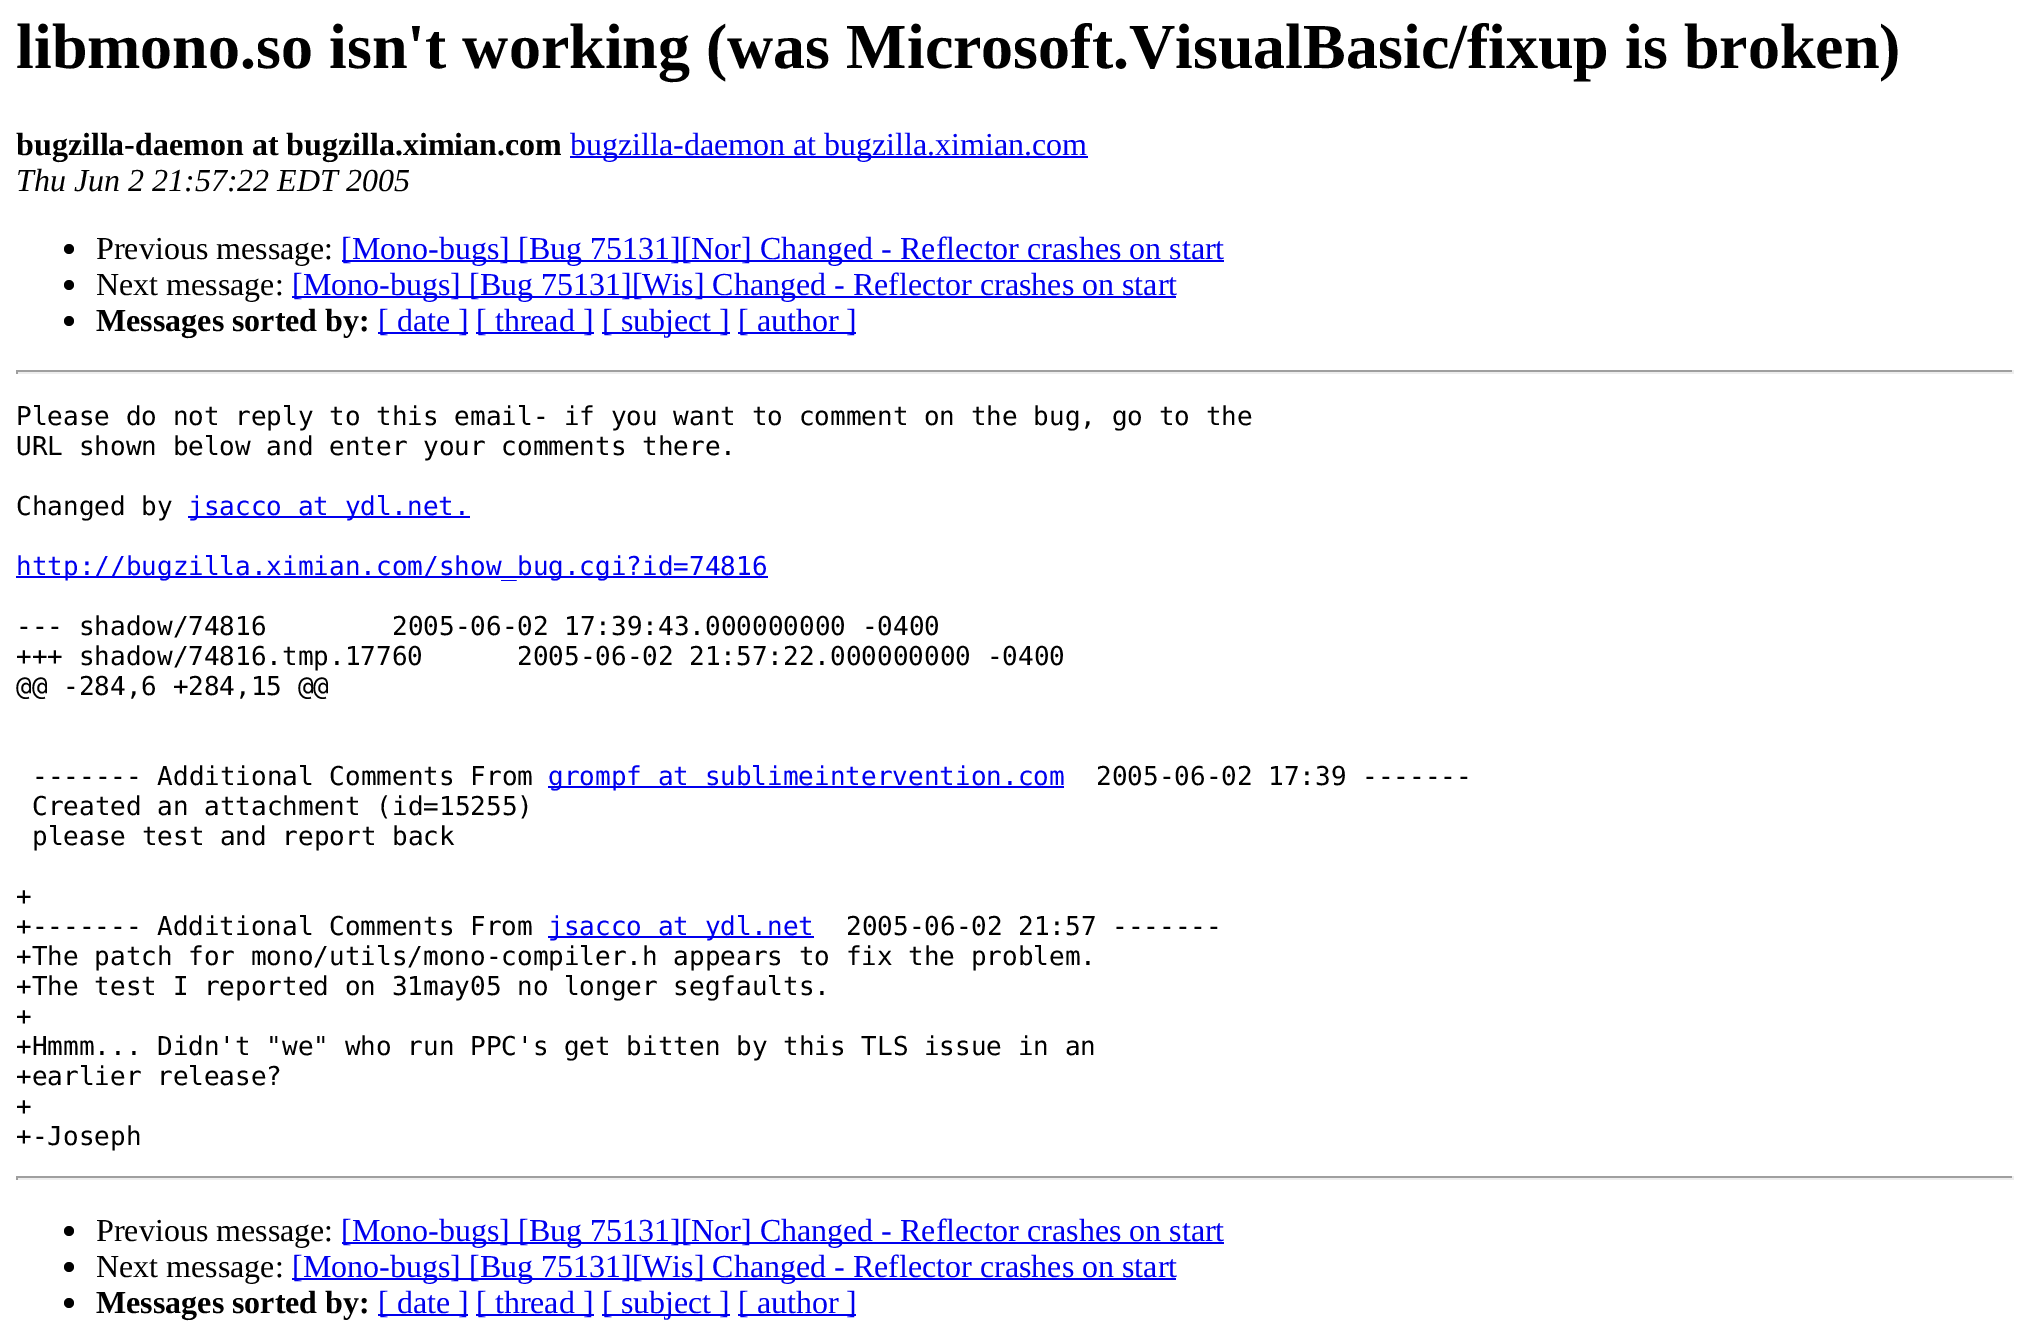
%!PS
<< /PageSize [2029 1337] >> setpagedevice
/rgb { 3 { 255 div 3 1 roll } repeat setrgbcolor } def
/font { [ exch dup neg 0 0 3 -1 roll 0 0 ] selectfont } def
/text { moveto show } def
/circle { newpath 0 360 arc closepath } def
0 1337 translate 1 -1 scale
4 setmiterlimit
255 255 255 rgb
0 0 2029 1337 rectfill
0 0 238 rgb
570 156 518 2 rectfill
0 0 0 rgb
69 249 5 circle fill
0 0 238 rgb
342 260 882 2 rectfill
0 0 0 rgb
69 285 5 circle fill
0 0 238 rgb
292 296 884 2 rectfill
0 0 0 rgb
69 321 5 circle fill
0 0 238 rgb
378 332 90 2 rectfill
476 332 118 2 rectfill
602 332 128 2 rectfill
738 332 118 2 rectfill
159 159 159 rgb
16 370 1998 2 rectfill
238 238 238 rgb
2012 370 2 4 rectfill
16 372 1998 2 rectfill
159 159 159 rgb
16 370 2 4 rectfill
0 0 238 rgb
188 516 282 2 rectfill
16 576 752 2 rectfill
548 786 516 2 rectfill
548 936 266 2 rectfill
159 159 159 rgb
16 1176 1998 2 rectfill
238 238 238 rgb
2012 1176 2 4 rectfill
16 1178 1998 2 rectfill
159 159 159 rgb
16 1176 2 4 rectfill
0 0 0 rgb
69 1231 5 circle fill
0 0 238 rgb
342 1242 882 2 rectfill
0 0 0 rgb
69 1267 5 circle fill
0 0 238 rgb
292 1278 884 2 rectfill
0 0 0 rgb
69 1303 5 circle fill
0 0 238 rgb
378 1314 90 2 rectfill
476 1314 118 2 rectfill
602 1314 128 2 rectfill
738 1314 118 2 rectfill
/LiberationSerif-Bold 64 font
0 0 0 rgb
(libmono.so isn't working \(was Microsoft.VisualBasic/fixup is broken\)) 16 68 text
/LiberationSerif-Bold 32 font
(bugzilla-daemon at bugzilla.ximian.com) 16 155 text
/LiberationSerif-Regular 32 font
0 0 238 rgb
(bugzilla-daemon at bugzilla.ximian.com) 570 155 text
/LiberationSerif-Italic 32 font
0 0 0 rgb
(Thu Jun 2 21:57:22 EDT 2005) 16 191 text
/LiberationSerif-Regular 32 font
(Previous message:) 96 259 text
0 0 238 rgb
([Mono-bugs] [Bug 75131][Nor] Changed - Reflector crashes on start) 341 259 text
0 0 0 rgb
(Next message:) 96 295 text
0 0 238 rgb
([Mono-bugs] [Bug 75131][Wis] Changed - Reflector crashes on start) 292 295 text
/LiberationSerif-Bold 32 font
0 0 0 rgb
(Messages sorted by:) 96 331 text
/LiberationSerif-Regular 32 font
0 0 238 rgb
([ date ]) 378 331 text
([ thread ]) 476 331 text
([ subject ]) 602 331 text
([ author ]) 738 331 text
/DejaVuSansMono-Regular 26 font
0 0 0 rgb
(Please do not reply to this email- if you want to comment on the bug, go to the) 16 425 text
(URL shown below and enter your comments there.) 16 455 text
(Changed by) 16 515 text
0 0 238 rgb
(jsacco at ydl.net.) 188 515 text
(http://bugzilla.ximian.com/show_bug.cgi?id=74816) 16 575 text
0 0 0 rgb
(--- shadow/74816) 16 635 text
(2005-06-02 17:39:43.000000000 -0400) 392 635 text
(+++ shadow/74816.tmp.17760) 16 665 text
(2005-06-02 21:57:22.000000000 -0400) 517 665 text
(@@ -284,6 +284,15 @@) 16 695 text
(------- Additional Comments From) 32 785 text
0 0 238 rgb
(grompf at sublimeintervention.com) 548 785 text
0 0 0 rgb
(2005-06-02 17:39 -------) 1096 785 text
(Created an attachment \(id=15255\)) 32 815 text
(please test and report back) 32 845 text
(+) 16 905 text
(+------- Additional Comments From) 16 935 text
0 0 238 rgb
(jsacco at ydl.net) 548 935 text
0 0 0 rgb
(2005-06-02 21:57 -------) 846 935 text
(+The patch for mono/utils/mono-compiler.h appears to fix the problem.) 16 965 text
(+The test I reported on 31may05 no longer segfaults.) 16 995 text
(+) 16 1025 text
(+Hmmm... Didn't "we" who run PPC's get bitten by this TLS issue in an) 16 1055 text
(+earlier release?) 16 1085 text
(+) 16 1115 text
(+-Joseph) 16 1145 text
/LiberationSerif-Regular 32 font
(Previous message:) 96 1241 text
0 0 238 rgb
([Mono-bugs] [Bug 75131][Nor] Changed - Reflector crashes on start) 341 1241 text
0 0 0 rgb
(Next message:) 96 1277 text
0 0 238 rgb
([Mono-bugs] [Bug 75131][Wis] Changed - Reflector crashes on start) 292 1277 text
/LiberationSerif-Bold 32 font
0 0 0 rgb
(Messages sorted by:) 96 1313 text
/LiberationSerif-Regular 32 font
0 0 238 rgb
([ date ]) 378 1313 text
([ thread ]) 476 1313 text
([ subject ]) 602 1313 text
([ author ]) 738 1313 text
showpage
